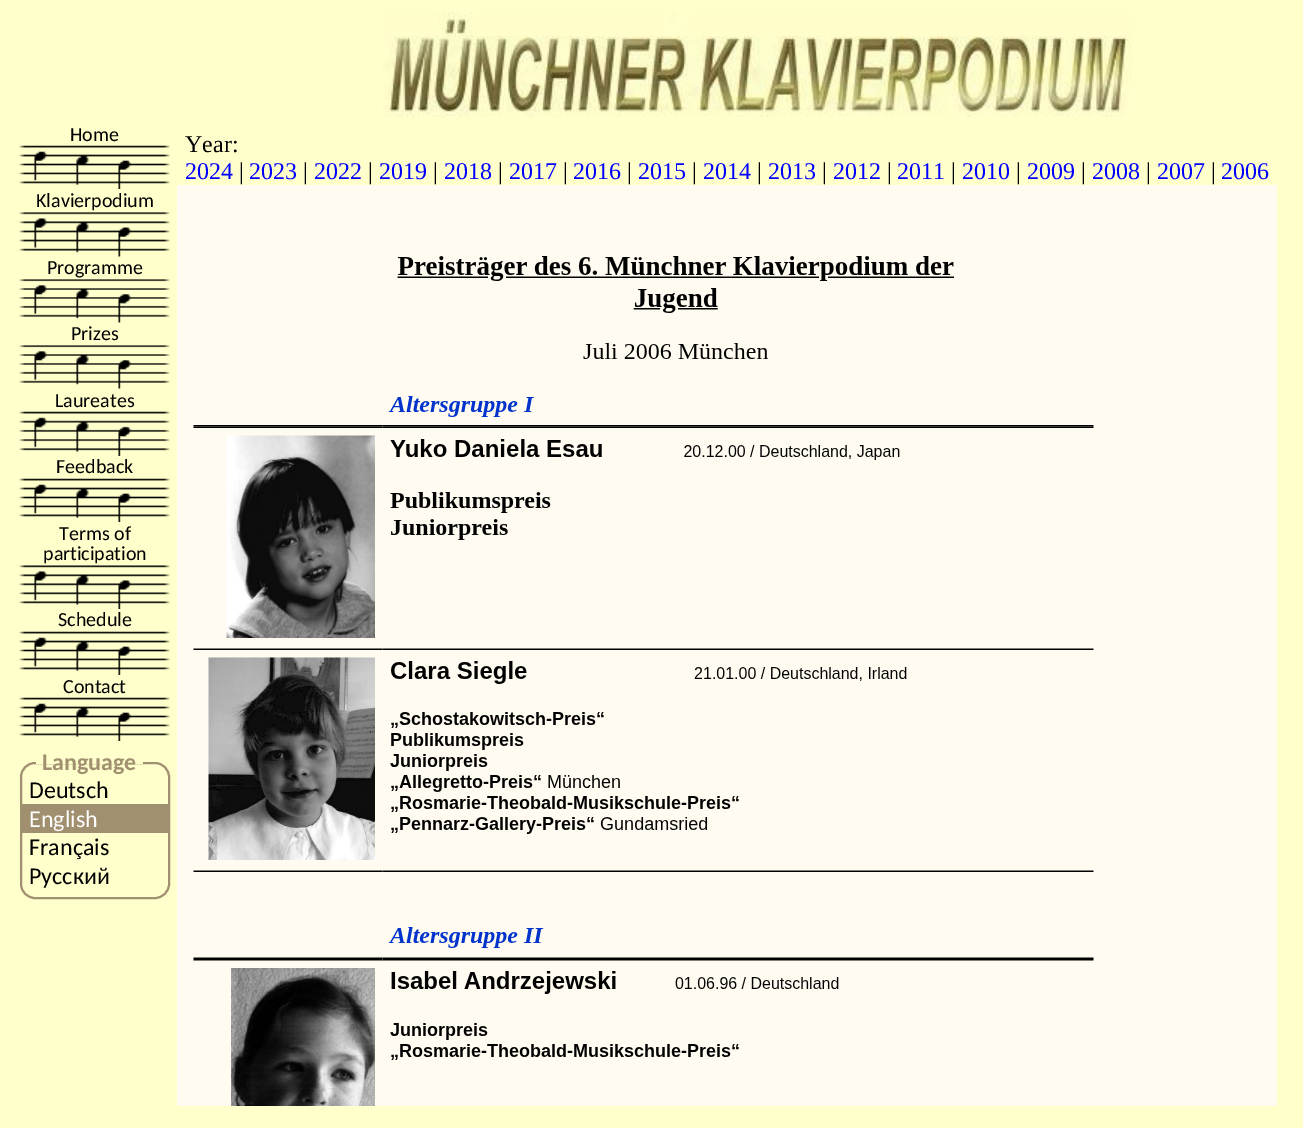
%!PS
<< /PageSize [1303 1128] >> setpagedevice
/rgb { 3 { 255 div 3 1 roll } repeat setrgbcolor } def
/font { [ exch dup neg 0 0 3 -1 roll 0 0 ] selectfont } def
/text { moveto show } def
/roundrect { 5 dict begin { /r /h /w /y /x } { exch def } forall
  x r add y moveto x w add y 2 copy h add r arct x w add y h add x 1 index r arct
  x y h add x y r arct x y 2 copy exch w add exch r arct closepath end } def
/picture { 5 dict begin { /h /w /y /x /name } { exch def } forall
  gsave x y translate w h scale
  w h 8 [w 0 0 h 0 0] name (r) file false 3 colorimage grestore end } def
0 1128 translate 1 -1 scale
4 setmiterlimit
255 255 204 rgb
0 0 1303 1128 rectfill
(img_01.rgb) 383 12 750 105 picture
(img_02.rgb) 19 145 151 44 picture
(img_03.rgb) 19 212 151 45 picture
(img_04.rgb) 19 279 151 44 picture
(img_04.rgb) 19 345 151 44 picture
(img_05.rgb) 19 411 151 45 picture
(img_02.rgb) 19 478 151 44 picture
(img_06.rgb) 19 565 151 44 picture
(img_02.rgb) 19 631 151 44 picture
(img_02.rgb) 19 697 151 44 picture
160 144 112 rgb
2 setlinewidth
21 763 148 135 14 roundrect stroke
255 255 204 rgb
36 762 107 2 rectfill
160 144 112 rgb
22 804 146 29 rectfill
(img_07.rgb) 177 185 1100 921 picture
/Carlito-Regular 20 font
0 0 0 rgb
(Home) 70 141 text
(Klavierpodium) 36 207 text
(Programme) 47 274 text
(Prizes) 71 340 text
(Laureates) 55 407 text
(Feedback) 56 473 text
(Terms of) 59 540 text
(participation) 43 560 text
(Schedule) 58 626 text
(Contact) 63 693 text
/Carlito-Bold 24 font
160 144 112 rgb
(Language) 42 770 text
/Carlito-Regular 24 font
0 0 0 rgb
(Deutsch) 29 798 text
255 255 255 rgb
(English) 29 827 text
0 0 0 rgb
(Français) 29 855 text
(Русский) 29 884 text
/LiberationSerif-Regular 24 font
(Year:) 185 152 text
0 0 255 rgb
(2024) 185 179 text
0 0 0 rgb
(|) 239 179 text
0 0 255 rgb
(2023) 249 179 text
0 0 0 rgb
(|) 303 179 text
0 0 255 rgb
(2022) 314 179 text
0 0 0 rgb
(|) 368 179 text
0 0 255 rgb
(2019) 379 179 text
0 0 0 rgb
(|) 433 179 text
0 0 255 rgb
(2018) 444 179 text
0 0 0 rgb
(|) 498 179 text
0 0 255 rgb
(2017) 509 179 text
0 0 0 rgb
(|) 563 179 text
0 0 255 rgb
(2016) 573 179 text
0 0 0 rgb
(|) 627 179 text
0 0 255 rgb
(2015) 638 179 text
0 0 0 rgb
(|) 692 179 text
0 0 255 rgb
(2014) 703 179 text
0 0 0 rgb
(|) 757 179 text
0 0 255 rgb
(2013) 768 179 text
0 0 0 rgb
(|) 822 179 text
0 0 255 rgb
(2012) 833 179 text
0 0 0 rgb
(|) 887 179 text
0 0 255 rgb
(2011) 897 179 text
0 0 0 rgb
(|) 951 179 text
0 0 255 rgb
(2010) 962 179 text
0 0 0 rgb
(|) 1016 179 text
0 0 255 rgb
(2009) 1027 179 text
0 0 0 rgb
(|) 1081 179 text
0 0 255 rgb
(2008) 1092 179 text
0 0 0 rgb
(|) 1146 179 text
0 0 255 rgb
(2007) 1157 179 text
0 0 0 rgb
(|) 1211 179 text
0 0 255 rgb
(2006) 1221 179 text
showpage
